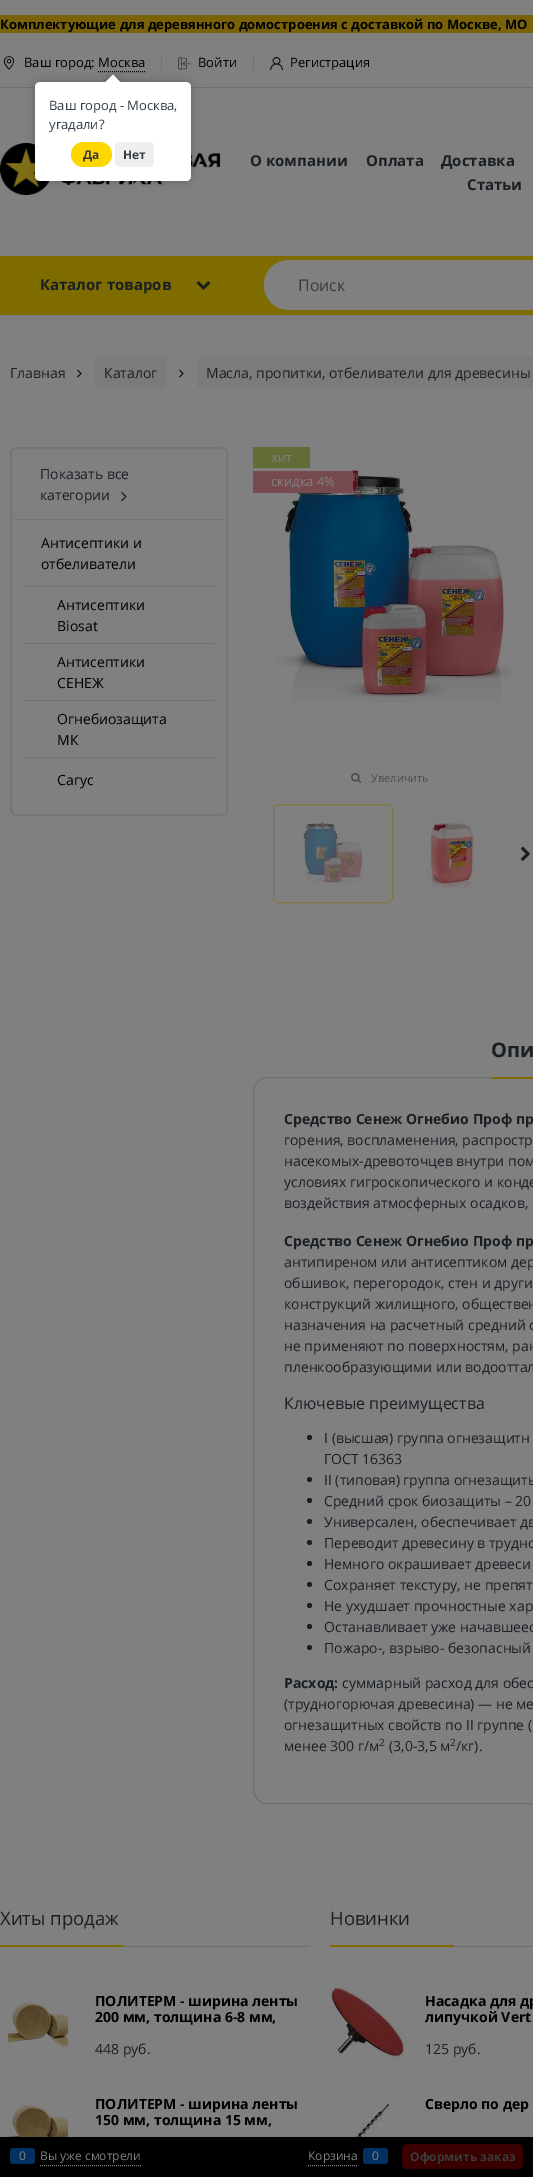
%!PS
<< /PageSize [533 2177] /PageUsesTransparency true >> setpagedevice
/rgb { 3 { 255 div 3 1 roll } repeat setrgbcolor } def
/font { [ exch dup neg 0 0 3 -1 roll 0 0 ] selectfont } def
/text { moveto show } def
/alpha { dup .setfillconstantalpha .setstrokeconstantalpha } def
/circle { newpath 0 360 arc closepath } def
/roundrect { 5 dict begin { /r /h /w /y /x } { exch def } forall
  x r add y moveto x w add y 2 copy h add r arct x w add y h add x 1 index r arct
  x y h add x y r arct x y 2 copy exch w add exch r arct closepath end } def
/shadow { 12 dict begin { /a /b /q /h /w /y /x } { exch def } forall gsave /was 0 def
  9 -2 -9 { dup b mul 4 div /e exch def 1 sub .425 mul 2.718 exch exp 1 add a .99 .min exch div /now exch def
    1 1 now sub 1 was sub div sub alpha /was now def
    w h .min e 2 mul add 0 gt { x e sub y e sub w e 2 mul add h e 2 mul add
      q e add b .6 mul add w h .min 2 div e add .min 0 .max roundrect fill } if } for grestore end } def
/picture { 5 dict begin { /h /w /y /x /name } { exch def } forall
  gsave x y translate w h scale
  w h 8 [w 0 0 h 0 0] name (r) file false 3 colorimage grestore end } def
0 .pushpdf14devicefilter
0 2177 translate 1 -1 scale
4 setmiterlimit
128 128 128 rgb
0 0 533 2177 rectfill
111 111 111 rgb
0 87 533 1 rectfill
121 98 8 rgb
0 15 533 18 rectfill
(img_01.rgb) 3 56 12 14 picture
0 0 0 rgb
[1 1] 0 setdash
98 71.5 moveto 47 0 rlineto stroke
(img_02.rgb) 178 57 13 13 picture
(img_03.rgb) 270 57 13 13 picture
(img_04.rgb) 0 143 220 52 picture
127 108 0 rgb
0 256 533 59 rectfill
(img_05.rgb) 196 281 15 9 picture
128 128 128 rgb
289 260 moveto 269 0 rlineto 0 50 rlineto -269 0 rlineto -14 0 -25 -11 -25 -25 rcurveto 0 -14 11 -25 25 -25 rcurveto closepath fill
(img_06.rgb) 77 369 5 9 picture
123 123 123 rgb
95 357 72 32 5 roundrect fill
(img_06.rgb) 179 369 5 9 picture
197 357 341 32 5 roundrect fill
118 118 118 rgb
2 setlinewidth
[] 0 setdash
11 448 216 367 5 roundrect stroke
12 519 214 1 rectfill
(img_07.rgb) 121 492 6 10 picture
113 114 114 rgb
24 586 190 1 rectfill
24 643 190 1 rectfill
24 700 190 1 rectfill
24 757 190 1 rectfill
(img_08.rgb) 275 465 239 238 picture
99 108 54 rgb
253 447 57 21 rectfill
118 74 79 rgb
253 471 100 22 rectfill
(img_09.rgb) 351 772 11 12 picture
128 118 64 rgb
1 setlinewidth
273.5 804.5 119 98 4.5 roundrect stroke
(img_10.rgb) 303 816 62 70 picture
(img_11.rgb) 425 816 55 75 picture
(img_12.rgb) 520 846 10 15 picture
111 111 111 rgb
253.5 1077.5 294 726 13.5 roundrect stroke
127 108 0 rgb
491 1077 42 2 rectfill
26 31 36 rgb
309.5 1437.5 2.5 circle fill
309.5 1479.5 2.5 circle fill
309.5 1500.5 2.5 circle fill
309.5 1521.5 2.5 circle fill
309.5 1542.5 2.5 circle fill
309.5 1563.5 2.5 circle fill
309.5 1584.5 2.5 circle fill
309.5 1605.5 2.5 circle fill
309.5 1626.5 2.5 circle fill
309.5 1647.5 2.5 circle fill
109 109 109 rgb
124 1946 186 1 rectfill
127 108 0 rgb
0 1945 124 2 rectfill
(img_13.rgb) 8 2002 60 45 picture
(img_14.rgb) 8 2105 60 32 picture
109 109 109 rgb
454 1946 79 1 rectfill
127 108 0 rgb
330 1945 124 2 rectfill
(img_15.rgb) 330 1987 75 75 picture
(img_16.rgb) 338 2098 56 39 picture
0 0 0 rgb
0 2137 533 40 rectfill
128 128 128 rgb
[1 1] 0 setdash
40 2165.5 moveto 101 0 rlineto stroke
3 49 97 rgb
10 2148 25 16 3 roundrect fill
128 128 128 rgb
308 2165.5 moveto 50 0 rlineto stroke
3 49 97 rgb
363 2148 25 16 3 roundrect fill
57 0 0 rgb
402 2144 121 25 5 roundrect fill
0 0 0 rgb
35 82 156 99 5 4.5 0.25 shadow
255 255 255 rgb
35 82 156 99 5 roundrect fill
gsave
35 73 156 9 rectclip
0 0 0 rgb
108 77 10 10 0 4.5 0.25 shadow
grestore
gsave
35 73 156 9 rectclip
113 74.5 moveto 7 7.5 rlineto -7 7 rlineto -7.5 -7 rlineto closepath fill
grestore
254 215 0 rgb
71 142 41 25 12.5 roundrect fill
239 239 239 rgb
115 142 39 25 5 roundrect fill
/OpenSans-Bold 13 font
0 0 0 rgb
(Комплектующие для деревянного домостроения с доставкой по Москве, МО) 0 29 text
/OpenSans-Regular 13 font
(Ваш город: Москва) 24 67 text
101 107 107 rgb
(|) 158 67 text
0 0 0 rgb
(Войти) 198 67 text
101 107 107 rgb
(|) 250 67 text
0 0 0 rgb
(Регистрация) 290 67 text
/OpenSans-Bold 15 font
26 31 36 rgb
(О компании) 250 166 text
(Оплата) 366 166 text
(Доставка) 441 166 text
(Статьи) 467 190 text
(Каталог товаров) 40 290 text
/OpenSans-Regular 16 font
59 59 59 rgb
(Поиск) 298 291 text
/OpenSans-Regular 14 font
26 31 36 rgb
(Главная) 10 378 text
(Каталог) 104 378 text
(Масла, пропитки, отбеливатели для древесины) 206 378 text
(Показать все) 40 479 text
(категории) 40 500 text
0 0 0 rgb
(Антисептики и) 41 548 text
(отбеливатели) 41 569 text
(Антисептики) 57 610 text
(Biosat) 57 631 text
(Антисептики) 57 667 text
(СЕНЕЖ) 57 688 text
(Огнебиозащита) 57 724 text
(МК) 57 745 text
(Сагус) 57 785 text
/OpenSans-Regular 13 font
128 128 128 rgb
(хит) 271 462 text
(скидка 4%) 271 486 text
/OpenSans-Regular 11 font
74 75 78 rgb
(Увеличить) 371 782 text
/OpenSans-Bold 20 font
26 31 36 rgb
(Опи) 491 1057 text
/OpenSans-Bold 14 font
(Средство Сенеж Огнебио Проф пр) 284 1124 text
/OpenSans-Regular 14 font
(горения, воспламенения, распростр) 284 1145 text
(насекомых-древоточцев внутри пом) 284 1166 text
(условиях гигроскопического и конде) 284 1187 text
(воздействия атмосферных осадков,) 284 1208 text
/OpenSans-Bold 14 font
(Средство Сенеж Огнебио Проф пр) 284 1246 text
/OpenSans-Regular 14 font
(антипиреном или антисептиком дер) 284 1267 text
(обшивок, перегородок, стен и други) 284 1288 text
(конструкций жилищного, обществен) 284 1309 text
(назначения на расчетный средний с) 284 1330 text
(не применяют по поверхностям, ран) 284 1351 text
(пленкообразующими или водооттал) 284 1372 text
/OpenSans-Regular 16 font
(Ключевые преимущества) 284 1409 text
/OpenSans-Regular 14 font
(I \(высшая\) группа огнезащитн) 324 1443 text
(ГОСТ 16363) 324 1464 text
(II \(типовая\) группа огнезащиты) 324 1485 text
(Средний срок биозащиты – 20) 324 1506 text
(Универсален, обеспечивает дв) 324 1527 text
(Переводит древесину в трудно) 324 1548 text
(Немного окрашивает древеси) 324 1569 text
(Сохраняет текстуру, не препят) 324 1590 text
(Не ухудшает прочностные хар) 324 1611 text
(Останавливает уже начавшеес) 324 1632 text
(Пожаро-, взрыво- безопасный) 324 1653 text
/OpenSans-Bold 14 font
(Расход:) 284 1688 text
/OpenSans-Regular 14 font
(суммарный расход для обес) 342 1688 text
(\(трудногорючая древесина\) — не ме) 284 1709 text
(огнезащитных свойств по II группе \() 284 1730 text
(менее 300 г/м) 284 1751 text
/OpenSans-Regular 10 font
(2) 379 1746 text
/OpenSans-Regular 14 font
(\(3,0-3,5 м) 389 1751 text
/OpenSans-Regular 10 font
(2) 450 1746 text
/OpenSans-Regular 14 font
(/кг\).) 456 1751 text
/OpenSans-Regular 18.5 font
(Хиты продаж) 0 1925 text
/OpenSans-Bold 14 font
0 0 0 rgb
(ПОЛИТЕРМ - ширина ленты) 95 2006 text
(200 мм, толщина 6-8 мм,) 95 2022 text
/OpenSans-Regular 14 font
26 31 36 rgb
(448 руб.) 95 2054 text
/OpenSans-Bold 14 font
0 0 0 rgb
(ПОЛИТЕРМ - ширина ленты) 95 2109 text
(150 мм, толщина 15 мм,) 95 2125 text
/OpenSans-Regular 18.5 font
26 31 36 rgb
(Новинки) 330 1925 text
/OpenSans-Bold 14 font
0 0 0 rgb
(Насадка для др) 425 2006 text
gsave
425 1993 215 32 rectclip
(липучкой Vert) 425 2022 text
grestore
/OpenSans-Regular 14 font
26 31 36 rgb
(125 руб.) 425 2054 text
gsave
425 2096 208 16 rectclip
/OpenSans-Bold 14 font
0 0 0 rgb
(Сверло по дер) 425 2109 text
grestore
/OpenSans-Regular 12 font
128 128 128 rgb
(0) 19 2160 text
(Вы уже смотрели) 40 2160 text
(Корзина) 308 2160 text
(0) 372 2160 text
/OpenSans-Bold 12 font
59 59 59 rgb
(Оформить заказ) 410 2161 text
/OpenSans-Regular 13 font
51 62 72 rgb
(Ваш город - Москва,) 49 110 text
(угадали?) 49 129 text
/OpenSans-Bold 12 font
53 57 60 rgb
(Да) 83 159 text
51 62 72 rgb
(Нет) 123 159 text
.poppdf14devicefilter showpage
